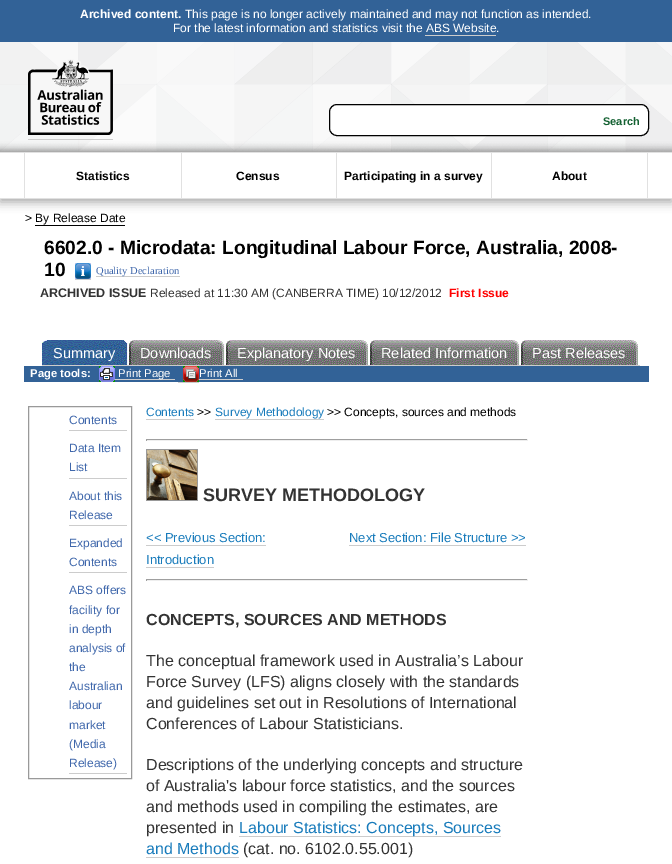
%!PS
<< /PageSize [672 864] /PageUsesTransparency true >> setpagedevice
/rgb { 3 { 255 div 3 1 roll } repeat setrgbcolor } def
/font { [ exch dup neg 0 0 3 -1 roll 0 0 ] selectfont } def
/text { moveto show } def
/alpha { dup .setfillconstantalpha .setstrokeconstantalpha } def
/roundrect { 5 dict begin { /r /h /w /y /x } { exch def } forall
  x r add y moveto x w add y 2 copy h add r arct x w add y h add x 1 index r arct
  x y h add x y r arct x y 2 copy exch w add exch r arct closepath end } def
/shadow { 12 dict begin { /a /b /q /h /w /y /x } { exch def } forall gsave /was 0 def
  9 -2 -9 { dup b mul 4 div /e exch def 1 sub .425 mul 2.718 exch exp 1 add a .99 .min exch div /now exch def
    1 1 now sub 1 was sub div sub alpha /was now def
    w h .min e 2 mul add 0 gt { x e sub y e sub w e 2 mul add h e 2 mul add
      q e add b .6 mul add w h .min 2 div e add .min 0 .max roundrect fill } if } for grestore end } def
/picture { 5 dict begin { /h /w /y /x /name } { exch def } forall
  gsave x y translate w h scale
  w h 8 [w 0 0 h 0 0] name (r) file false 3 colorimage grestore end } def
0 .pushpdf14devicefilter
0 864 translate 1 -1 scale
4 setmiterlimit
255 255 255 rgb
0 0 672 864 rectfill
50 98 151 rgb
0 0 672 42 rectfill
204 204 204 rgb
425 35 71 1 rectfill
(img_01.rgb) 0 42 672 110 picture
gsave
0 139 moveto 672 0 rlineto 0 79 rlineto -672 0 rlineto closepath 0 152 moveto 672 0 rlineto 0 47 rlineto -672 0 rlineto closepath eoclip newpath
0 0 0 rgb
0 155 672 47 0 5 0.35 shadow
grestore
28 139 85 1 rectfill
(img_02.rgb) 28 59 85 76 picture
255 255 255 rgb
329.5 104.5 319 31 7.5 roundrect gsave fill grestore
0 0 0 rgb
stroke
225 225 225 rgb
0 152 672 1 rectfill
0 198 672 1 rectfill
181 153 1 45 rectfill
24 153 1 45 rectfill
336 153 1 45 rectfill
491 153 1 45 rectfill
647 153 1 45 rectfill
0 0 0 rgb
35 225 90 1 rectfill
(img_03.rgb) 75 263 16 16 picture
204 204 204 rgb
75 279 16 1 rectfill
96 276 84 1 rectfill
(img_04.rgb) 42 340 5 25 picture
42 365 598 1 rectfill
(img_05.rgb) 47 340 82 25 picture
(img_06.rgb) 129 340 5 25 picture
(img_07.rgb) 134 340 92 25 picture
(img_06.rgb) 226 340 5 25 picture
(img_08.rgb) 231 340 139 25 picture
(img_06.rgb) 370 340 5 25 picture
(img_09.rgb) 375 340 146 25 picture
(img_06.rgb) 521 340 5 25 picture
(img_10.rgb) 526 340 114 25 picture
50 98 151 rgb
24 366 625 16 rectfill
(img_11.rgb) 99 366 16 16 picture
204 204 204 rgb
115 379 60 1 rectfill
(img_12.rgb) 183 366 16 16 picture
178 382 21 1 rectfill
199 379 44 1 rectfill
153 153 153 rgb
28.5 406.5 103 372 rectstroke
204 204 204 rgb
69 430 58 1 rectfill
69 478 58 1 rectfill
69 525 58 1 rectfill
69 572 58 1 rectfill
69 773 58 1 rectfill
146 419 48 1 rectfill
215 419 109 1 rectfill
159 159 159 rgb
146 439 382 1 rectfill
238 238 238 rgb
527 439 1 2 rectfill
146 440 382 1 rectfill
159 159 159 rgb
146 439 1 2 rectfill
(img_13.rgb) 146 449 52 52 picture
204 204 204 rgb
146 545 120 1 rectfill
146 567 68 1 rectfill
349 545 177 1 rectfill
159 159 159 rgb
146 579 382 1 rectfill
238 238 238 rgb
527 579 1 2 rectfill
146 580 382 1 rectfill
159 159 159 rgb
146 579 1 2 rectfill
204 204 204 rgb
239 836 262 1 rectfill
146 857 93 1 rectfill
/LiberationSans-Bold 12 font
255 255 255 rgb
(Archived content.) 80 18 text
/LiberationSans-Regular 12 font
(This page is no longer actively maintained and may not function as intended.) 185 18 text
(For the latest information and statistics visit the ABS Website.) 173 32 text
/LiberationSans-Bold 11 font
20 97 50 rgb
(Search) 603 125 text
/LiberationSans-Bold 12 font
0 0 0 rgb
(Statistics) 76 180 text
(Census) 236 180 text
(Participating in a survey) 344 180 text
(About) 552 180 text
/LiberationSans-Regular 12 font
(> By Release Date) 25 222 text
/LiberationSans-Bold 19.2 font
(6602.0 - Microdata: Longitudinal Labour Force, Australia, 2008-) 44 254 text
(10) 44 276 text
/LiberationSerif-Regular 10.5 font
63 103 171 rgb
(Quality Declaration) 96 274 text
/LiberationSans-Bold 12.5 font
51 51 51 rgb
(ARCHIVED ISSUE) 40 297 text
/LiberationSans-Regular 12 font
(Released at 11:30 AM \(CANBERRA TIME\) 10/12/2012) 150 297 text
/LiberationSans-Bold 12 font
255 0 0 rgb
(First Issue) 449 297 text
/LiberationSans-Regular 14.5 font
255 255 255 rgb
(Summary) 53 358 text
(Downloads) 140 358 text
(Explanatory Notes) 237 358 text
(Related Information) 381 358 text
(Past Releases) 532 358 text
/LiberationSans-Bold 11.25 font
(Page tools:) 30 377 text
/LiberationSans-Regular 11.25 font
(Print Page) 118 377 text
(Print All) 199 377 text
/LiberationSans-Regular 12 font
63 103 171 rgb
(Contents) 69 424 text
(Data Item) 69 452 text
(List) 69 471 text
(About this) 69 500 text
(Release) 69 519 text
(Expanded) 69 547 text
(Contents) 69 566 text
(ABS offers) 69 594 text
(facility for) 69 614 text
(in depth) 69 633 text
(analysis of) 69 652 text
(the) 69 671 text
(Australian) 69 690 text
(labour) 69 709 text
(market) 69 729 text
(\(Media) 69 748 text
(Release\)) 69 767 text
24 123 187 rgb
(Contents) 146 416 text
0 0 0 rgb
(>>) 197 416 text
24 123 187 rgb
(Survey Methodology) 215 416 text
0 0 0 rgb
(>> Concepts, sources and methods) 327 416 text
/LiberationSans-Bold 18 font
51 51 51 rgb
(SURVEY METHODOLOGY) 203 501 text
/LiberationSans-Regular 13 font
24 123 187 rgb
(<< Previous Section:) 146 542 text
(Introduction) 146 564 text
(Next Section: File Structure >>) 349 542 text
/LiberationSans-Bold 16 font
51 51 51 rgb
(CONCEPTS, SOURCES AND METHODS) 146 625 text
/LiberationSans-Regular 16 font
(The conceptual framework used in Australia’s Labour) 146 666 text
(Force Survey \(LFS\) aligns closely with the standards) 146 687 text
(and guidelines set out in Resolutions of International) 146 708 text
(Conferences of Labour Statisticians.) 146 729 text
(Descriptions of the underlying concepts and structure) 146 770 text
(of Australia's labour force statistics, and the sources) 146 791 text
(and methods used in compiling the estimates, are) 146 812 text
(presented in) 146 833 text
24 123 187 rgb
(Labour Statistics: Concepts, Sources) 239 833 text
(and Methods) 146 854 text
51 51 51 rgb
(\(cat. no. 6102.0.55.001\)) 243 854 text
.poppdf14devicefilter showpage
